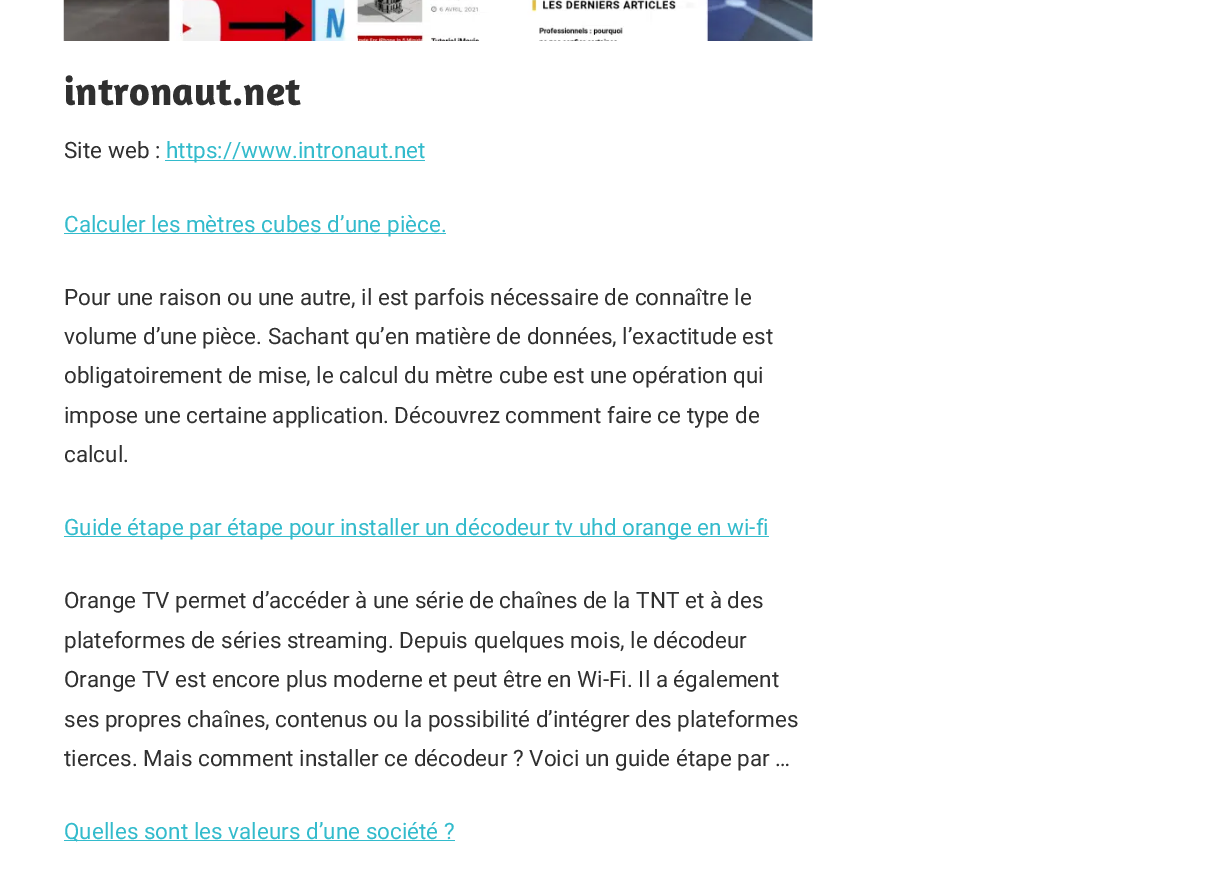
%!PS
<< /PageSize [1209 889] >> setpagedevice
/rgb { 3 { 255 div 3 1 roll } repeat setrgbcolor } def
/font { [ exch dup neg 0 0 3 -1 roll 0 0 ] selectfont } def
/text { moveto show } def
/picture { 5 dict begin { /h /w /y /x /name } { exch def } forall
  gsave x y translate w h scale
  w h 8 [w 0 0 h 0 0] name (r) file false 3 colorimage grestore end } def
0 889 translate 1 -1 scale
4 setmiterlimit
255 255 255 rgb
0 0 1209 889 rectfill
(img_01.rgb) 63 0 750 41 picture
51 187 204 rgb
165 160 260 1 rectfill
64 233 382 1 rectfill
64 536 705 1 rectfill
64 840 391 1 rectfill
/Amaranth-Bold 40 font
48 48 48 rgb
(intronaut.net) 64 105 text
/Roboto-Regular 22.5 font
(Site web :) 64 158 text
51 187 204 rgb
(https://www.intronaut.net) 166 158 text
(Calculer les mètres cubes d’une pièce.) 64 232 text
48 48 48 rgb
(Pour une raison ou une autre, il est parfois nécessaire de connaître le) 64 305 text
(volume d’une pièce. Sachant qu’en matière de données, l’exactitude est) 64 344 text
(obligatoirement de mise, le calcul du mètre cube est une opération qui) 64 383 text
(impose une certaine application. Découvrez comment faire ce type de) 64 423 text
(calcul.) 64 462 text
51 187 204 rgb
(Guide étape par étape pour installer un décodeur tv uhd orange en wi-fi) 64 535 text
48 48 48 rgb
(Orange TV permet d’accéder à une série de chaînes de la TNT et à des) 64 608 text
(plateformes de séries streaming. Depuis quelques mois, le décodeur) 64 648 text
(Orange TV est encore plus moderne et peut être en Wi-Fi. Il a également) 64 687 text
(ses propres chaînes, contenus ou la possibilité d’intégrer des plateformes) 64 727 text
(tierces. Mais comment installer ce décodeur ? Voici un guide étape par …) 64 766 text
51 187 204 rgb
(Quelles sont les valeurs d’une société ?) 64 839 text
showpage
